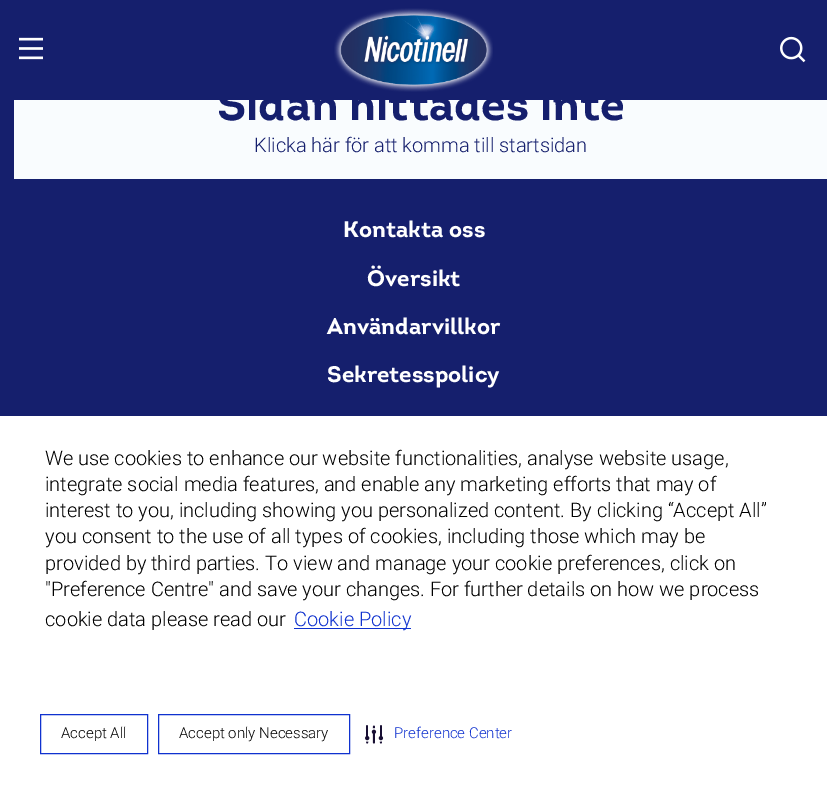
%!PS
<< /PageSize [827 793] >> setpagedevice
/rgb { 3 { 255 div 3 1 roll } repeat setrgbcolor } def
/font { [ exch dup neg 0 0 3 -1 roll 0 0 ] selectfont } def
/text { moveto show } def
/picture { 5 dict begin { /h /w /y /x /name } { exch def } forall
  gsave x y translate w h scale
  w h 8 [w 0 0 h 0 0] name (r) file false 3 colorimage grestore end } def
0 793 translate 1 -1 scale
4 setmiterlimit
249 252 254 rgb
0 0 827 793 rectfill
21 31 109 rgb
0 0 827 100 rectfill
(img_01.rgb) 19 37 24 23 picture
(img_03.rgb) 780 36 26 27 picture
0 100 14 79 rectfill
0 179 827 237 rectfill
255 255 255 rgb
0 416 827 377 rectfill
16 50 207 rgb
294 628 117 1 rectfill
40.5 714.5 107 39 rectstroke
158.5 714.5 191 39 rectstroke
(img_04.rgb) 365 725 19 19 picture
/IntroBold-Bold 45 font
21 31 109 rgb
(Sidan hittades inte) 217 120 text
(img_02.rgb) 334 8 159 84 picture
/Roboto-Light 20 font
(Klicka här för att komma till startsidan) 254 152 text
/IntroBold-Bold 22.5 font
255 255 255 rgb
(Kontakta oss) 343 237 text
(Översikt) 367 286 text
(Användarvillkor) 327 334 text
(Sekretesspolicy) 327 382 text
/Roboto-Light 20 font
0 0 0 rgb
(We use cookies to enhance our website functionalities, analyse website usage,) 45 465 text
(integrate social media features, and enable any marketing efforts that may of) 45 491 text
(interest to you, including showing you personalized content. By clicking “Accept All”) 45 517 text
(you consent to the use of all types of cookies, including those which may be) 45 543 text
(provided by third parties. To view and manage your cookie preferences, click on) 45 570 text
("Preference Centre" and save your changes. For further details on how we process) 45 596 text
(cookie data please read our) 45 626 text
16 50 207 rgb
(Cookie Policy) 294 626 text
/Roboto-Light 15 font
0 0 0 rgb
(Accept All) 61 738 text
(Accept only Necessary) 179 738 text
16 50 207 rgb
(Preference Center) 394 738 text
showpage
